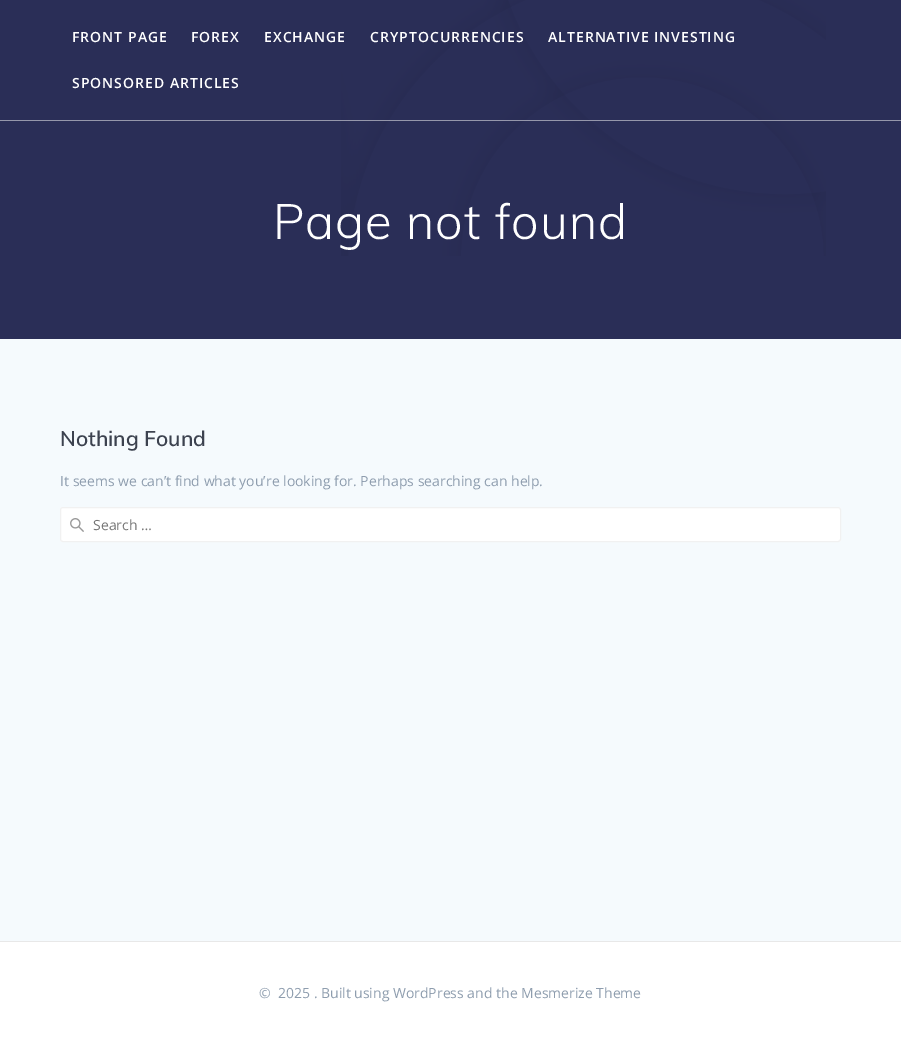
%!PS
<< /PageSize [901 1042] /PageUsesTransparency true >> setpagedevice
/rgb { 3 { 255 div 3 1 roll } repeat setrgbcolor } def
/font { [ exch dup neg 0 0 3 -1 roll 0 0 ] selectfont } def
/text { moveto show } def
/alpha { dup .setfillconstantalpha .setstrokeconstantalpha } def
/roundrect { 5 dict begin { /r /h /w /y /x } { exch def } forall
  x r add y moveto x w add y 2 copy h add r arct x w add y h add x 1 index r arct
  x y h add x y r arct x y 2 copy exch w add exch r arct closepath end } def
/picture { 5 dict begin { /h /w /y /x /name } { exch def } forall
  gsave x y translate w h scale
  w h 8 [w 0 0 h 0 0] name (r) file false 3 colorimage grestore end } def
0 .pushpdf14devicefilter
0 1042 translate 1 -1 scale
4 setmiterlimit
255 255 255 rgb
0 0 901 1042 rectfill
42 46 87 rgb
0 0 901 339 rectfill
(img_01.rgb) 341 0 485 256 picture
0.5 alpha
255 255 255 rgb
0 120 901 1 rectfill
1 alpha
245 250 253 rgb
0 339 901 602 rectfill
255 255 255 rgb
60 507 781 35 3 roundrect fill
(img_02.rgb) 70 518 14 14 picture
241 241 241 rgb
60.5 507.5 780 34 2.5 roundrect stroke
232 232 232 rgb
0 941 901 1 rectfill
/OpenSans-SemiBold 14 font
255 255 255 rgb
72 42 moveto 1 0 (FRONT PAGE) ashow
191 42 moveto 1 0 (FOREX) ashow
264 42 moveto 1 0 (EXCHANGE) ashow
370 42 moveto 1 0 (CRYPTOCURRENCIES) ashow
548 42 moveto 1 0 (ALTERNATIVE INVESTING) ashow
72 88 moveto 1 0 (SPONSORED ARTICLES) ashow
/Muli-Light 49 font
273 239 moveto 0.9 0 (Page not found) ashow
/Muli-SemiBold 21 font
60 66 79 rgb
(Nothing Found) 60 446 text
/OpenSans-Regular 14 font
142 157 174 rgb
(It seems we can’t find what you’re looking for. Perhaps searching can help.) 60 486 text
117 117 117 rgb
(Search …) 93 530 text
142 157 174 rgb
(©  2025 . Built using WordPress and the Mesmerize Theme) 259 998 text
.poppdf14devicefilter showpage
